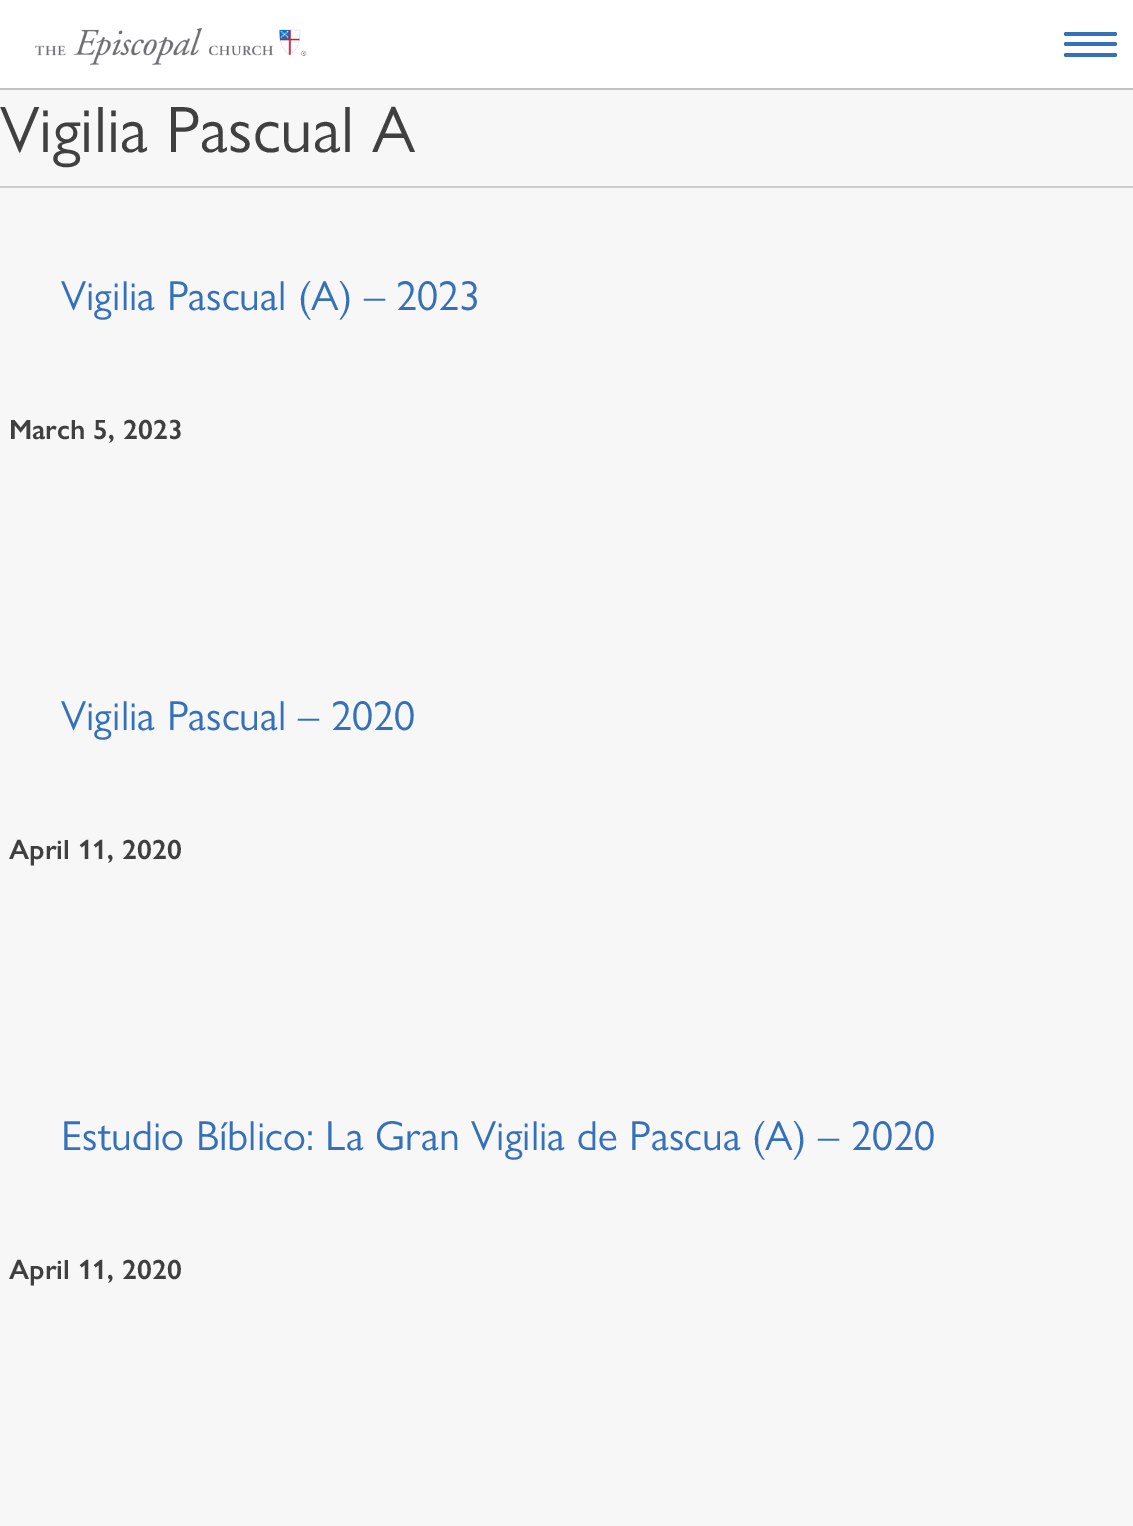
%!PS
<< /PageSize [1133 1526] >> setpagedevice
/rgb { 3 { 255 div 3 1 roll } repeat setrgbcolor } def
/font { [ exch dup neg 0 0 3 -1 roll 0 0 ] selectfont } def
/text { moveto show } def
/roundrect { 5 dict begin { /r /h /w /y /x } { exch def } forall
  x r add y moveto x w add y 2 copy h add r arct x w add y h add x 1 index r arct
  x y h add x y r arct x y 2 copy exch w add exch r arct closepath end } def
/picture { 5 dict begin { /h /w /y /x /name } { exch def } forall
  gsave x y translate w h scale
  w h 8 [w 0 0 h 0 0] name (r) file false 3 colorimage grestore end } def
0 1526 translate 1 -1 scale
4 setmiterlimit
247 247 247 rgb
0 0 1133 1526 rectfill
255 255 255 rgb
0 0 1133 88 rectfill
(img_01.rgb) 35 28 272 37 picture
53 113 187 rgb
1064 42 53 4 2 roundrect fill
1064 32 53 4 2 roundrect fill
1064 53 53 4 2 roundrect fill
194 194 194 rgb
0 88 1133 2 rectfill
204 204 204 rgb
0 186 1133 2 rectfill
/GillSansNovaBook-Regular 66 font
64 64 64 rgb
(Vigilia Pascual A) 0 152 text
/GillSansNovaBook-Regular 42 font
53 113 187 rgb
(Vigilia Pascual \(A\) – 2023) 61 310 text
/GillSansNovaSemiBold-SemiBold 28 font
64 64 64 rgb
(March 5, 2023) 9 439 text
/GillSansNovaBook-Regular 42 font
53 113 187 rgb
(Vigilia Pascual – 2020) 61 730 text
/GillSansNovaSemiBold-SemiBold 28 font
64 64 64 rgb
(April 11, 2020) 9 859 text
/GillSansNovaBook-Regular 42 font
53 113 187 rgb
(Estudio Bíblico: La Gran Vigilia de Pascua \(A\) – 2020) 61 1150 text
/GillSansNovaSemiBold-SemiBold 28 font
64 64 64 rgb
(April 11, 2020) 9 1279 text
showpage
